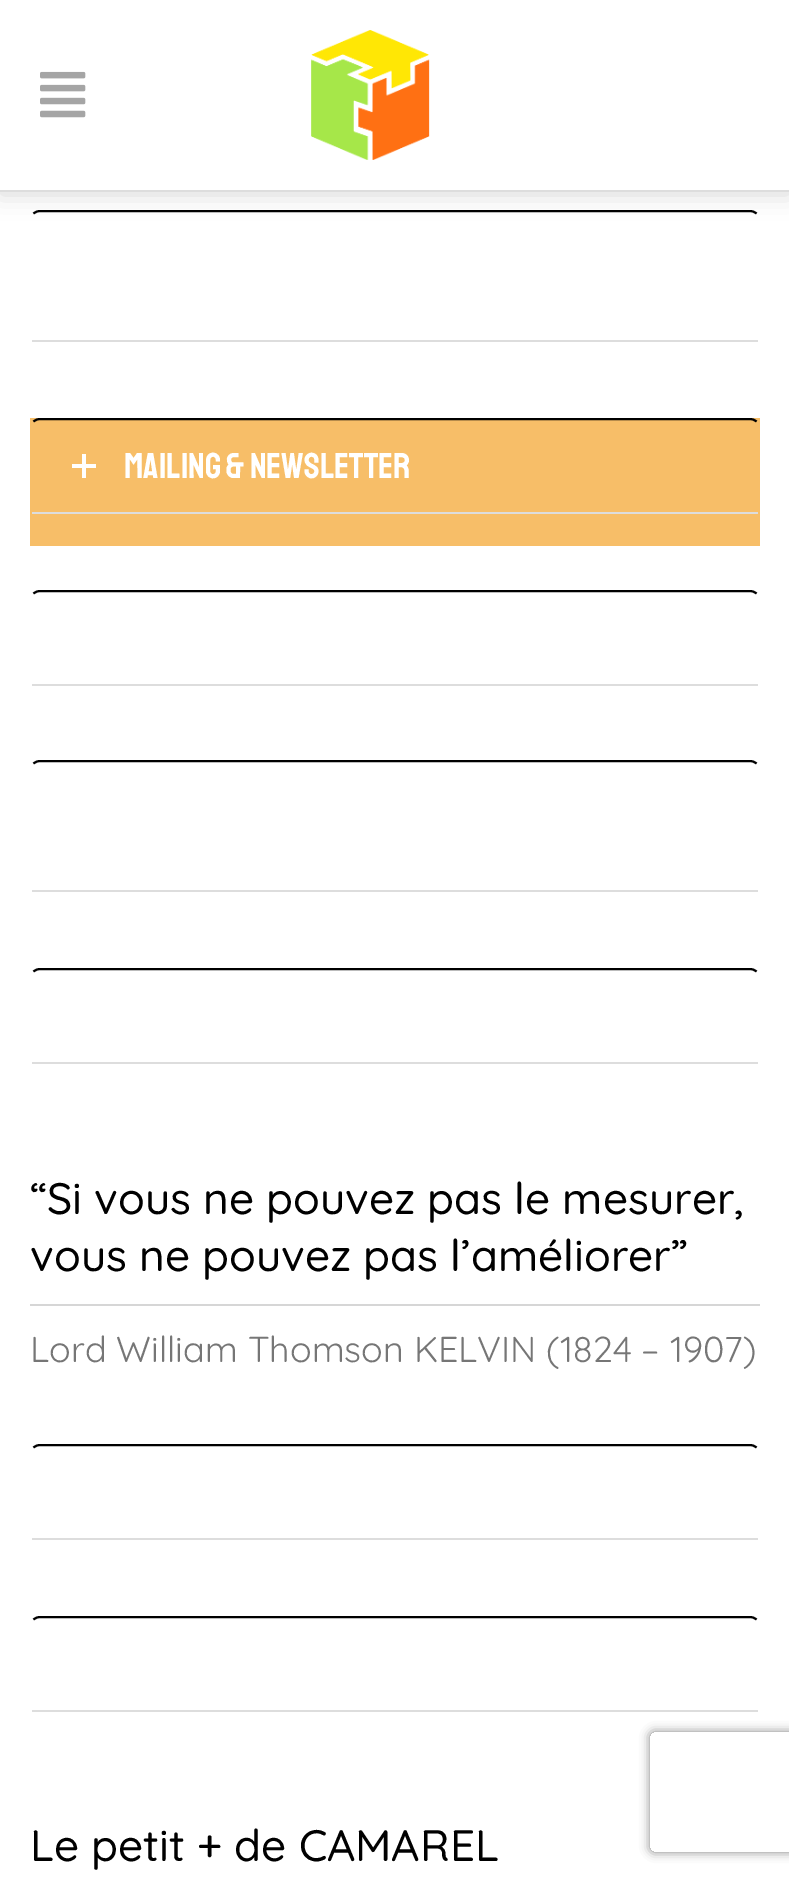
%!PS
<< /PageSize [789 1879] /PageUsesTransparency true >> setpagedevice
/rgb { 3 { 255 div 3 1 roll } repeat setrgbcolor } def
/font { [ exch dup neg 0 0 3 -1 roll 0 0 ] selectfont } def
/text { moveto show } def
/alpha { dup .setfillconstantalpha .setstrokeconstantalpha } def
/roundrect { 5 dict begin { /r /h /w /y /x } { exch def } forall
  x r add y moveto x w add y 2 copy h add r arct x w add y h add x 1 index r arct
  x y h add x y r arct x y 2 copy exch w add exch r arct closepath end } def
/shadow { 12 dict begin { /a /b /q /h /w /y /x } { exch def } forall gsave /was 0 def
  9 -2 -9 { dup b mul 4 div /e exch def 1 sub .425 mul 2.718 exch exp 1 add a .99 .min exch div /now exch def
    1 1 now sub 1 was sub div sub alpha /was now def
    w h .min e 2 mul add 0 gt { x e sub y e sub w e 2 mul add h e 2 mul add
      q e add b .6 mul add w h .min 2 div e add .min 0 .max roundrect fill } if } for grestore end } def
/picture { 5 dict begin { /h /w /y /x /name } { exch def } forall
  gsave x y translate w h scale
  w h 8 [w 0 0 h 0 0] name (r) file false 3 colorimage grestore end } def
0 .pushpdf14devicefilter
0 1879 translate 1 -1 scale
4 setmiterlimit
255 255 255 rgb
0 0 789 1879 rectfill
0 0 0 rgb
2 setlinewidth
33.5 213.5 moveto 2 -1.5 4 -2.5 6.5 -2.5 rcurveto 710 0 rlineto 2.5 0 4.5 1 6.5 2.5 rcurveto stroke
0 2 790 192 0 12 0.15 shadow
255 255 255 rgb
0 0 789 190 rectfill
221 221 221 rgb
0 190 789 2 rectfill
(img_01.rgb) 40 71 46 47 picture
(img_02.rgb) 311 30 119 130 picture
32 340 726 2 rectfill
247 190 104 rgb
30 418 730 128 rectfill
0 0 0 rgb
33.5 421.5 moveto 2 -1.5 4 -2.5 6.5 -2.5 rcurveto 710 0 rlineto 2.5 0 4.5 1 6.5 2.5 rcurveto stroke
221 221 221 rgb
32 512 726 2 rectfill
255 255 255 rgb
72 464 24 4 rectfill
82 454 4 24 rectfill
0 0 0 rgb
33.5 593.5 moveto 2 -1.5 4 -2.5 6.5 -2.5 rcurveto 710 0 rlineto 2.5 0 4.5 1 6.5 2.5 rcurveto stroke
221 221 221 rgb
32 684 726 2 rectfill
0 0 0 rgb
33.5 763.5 moveto 2 -1.5 4 -2.5 6.5 -2.5 rcurveto 710 0 rlineto 2.5 0 4.5 1 6.5 2.5 rcurveto stroke
221 221 221 rgb
32 890 726 2 rectfill
0 0 0 rgb
33.5 971.5 moveto 2 -1.5 4 -2.5 6.5 -2.5 rcurveto 710 0 rlineto 2.5 0 4.5 1 6.5 2.5 rcurveto stroke
221 221 221 rgb
32 1062 726 2 rectfill
214 214 214 rgb
30 1304 730 2 rectfill
0 0 0 rgb
33.5 1447.5 moveto 2 -1.5 4 -2.5 6.5 -2.5 rcurveto 710 0 rlineto 2.5 0 4.5 1 6.5 2.5 rcurveto stroke
221 221 221 rgb
32 1538 726 2 rectfill
0 0 0 rgb
33.5 1619.5 moveto 2 -1.5 4 -2.5 6.5 -2.5 rcurveto 710 0 rlineto 2.5 0 4.5 1 6.5 2.5 rcurveto stroke
221 221 221 rgb
32 1710 726 2 rectfill
gsave
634 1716 moveto 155 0 rlineto 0 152 rlineto -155 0 rlineto closepath 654 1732 moveto 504 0 rlineto 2 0 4 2 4 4 rcurveto 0 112 rlineto 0 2 -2 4 -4 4 rcurveto -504 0 rlineto -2 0 -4 -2 -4 -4 rcurveto 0 -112 rlineto 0 -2 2 -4 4 -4 rcurveto closepath eoclip newpath
128 128 128 rgb
650 1732 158 120 4 5 1 shadow
grestore
/Staatliches-Regular 36 font
255 255 255 rgb
(MAILING & NEWSLETTER) 124 478 text
/Quicksand-Medium 44 font
0 0 0 rgb
(“Si vous ne pouvez pas le mesurer,) 30 1214 text
(vous ne pouvez pas l’améliorer”) 30 1271 text
/Quicksand-Regular 36 font
118 118 118 rgb
(Lord William Thomson KELVIN \(1824 – 1907\)) 30 1362 text
/Quicksand-Medium 44 font
0 0 0 rgb
(Le petit + de CAMAREL) 30 1861 text
.poppdf14devicefilter showpage
